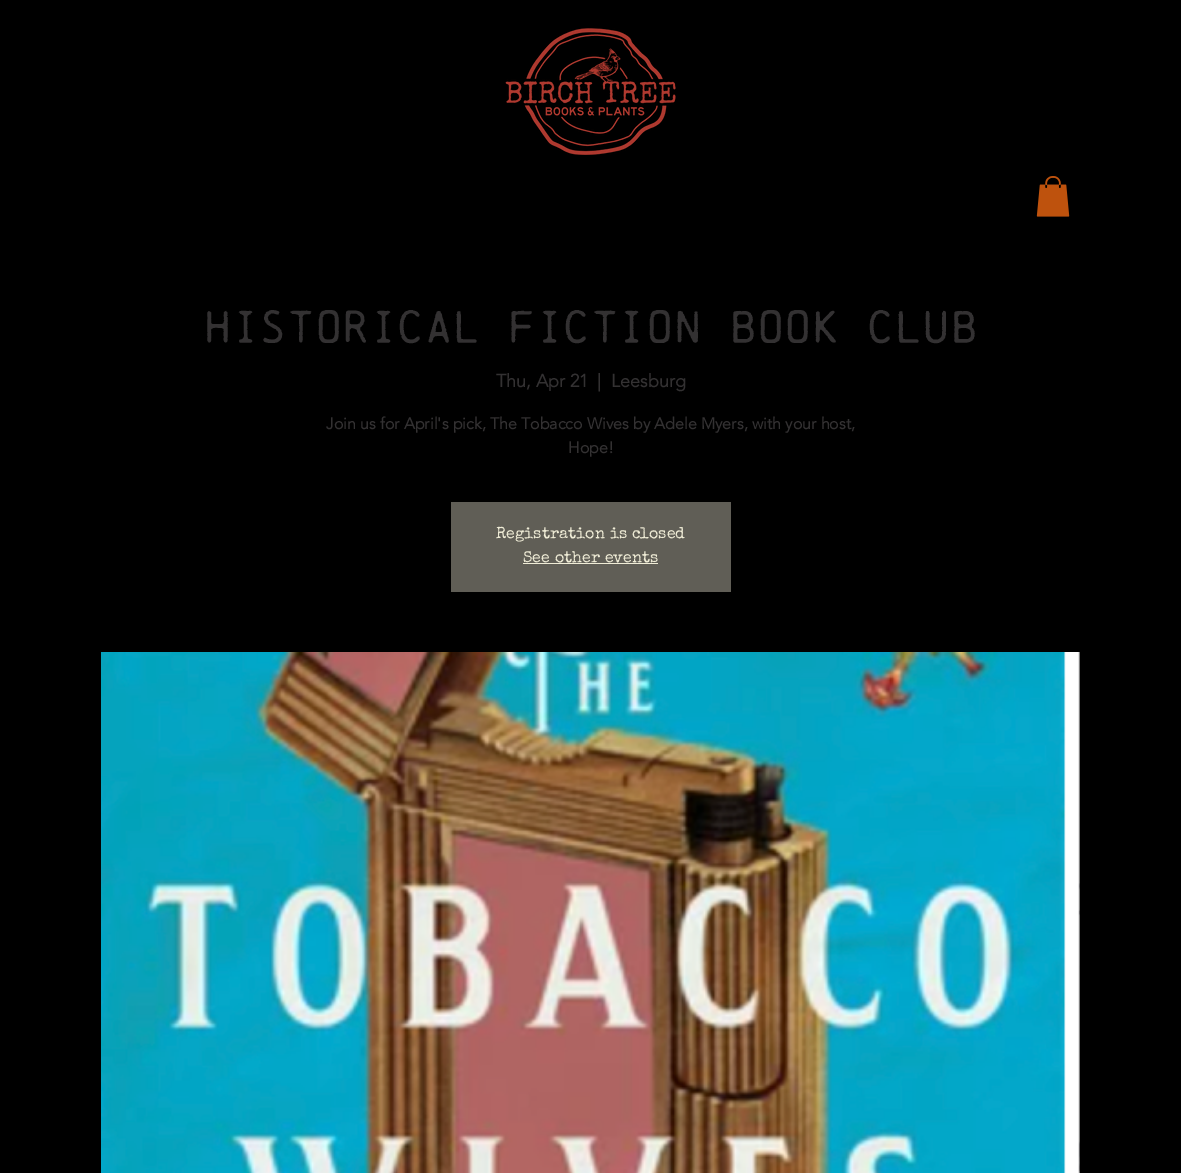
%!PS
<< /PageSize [1181 1173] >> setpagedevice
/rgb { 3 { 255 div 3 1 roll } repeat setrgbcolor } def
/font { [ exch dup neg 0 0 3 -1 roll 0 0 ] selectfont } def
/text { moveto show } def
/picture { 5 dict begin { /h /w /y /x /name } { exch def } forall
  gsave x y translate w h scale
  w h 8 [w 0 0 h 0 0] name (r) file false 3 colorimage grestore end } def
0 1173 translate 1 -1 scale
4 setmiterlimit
0 0 0 rgb
0 0 1181 1173 rectfill
(img_01.rgb) 505 28 171 127 picture
(img_02.rgb) 1036 176 34 41 picture
96 94 86 rgb
451 502 280 90 rectfill
239 236 214 rgb
523 563 135 1 rectfill
(img_03.rgb) 101 652 979 521 picture
/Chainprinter-Regular 42 font
51 49 50 rgb
(Historical Fiction Book Club) 204 343 text
/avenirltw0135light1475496-Bold 18 font
(Thu, Apr 21) 496 387 text
(|) 597 387 text
(Leesburg) 611 387 text
/avenirltw0135light1475496-Bold 16 font
(Join us for April's pick, The Tobacco Wives by Adele Myers, with your host,) 326 429 text
(Hope!) 568 453 text
/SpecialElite-Regular 16 font
239 236 214 rgb
(Registration is closed) 496 538 text
(See other events) 523 562 text
showpage
